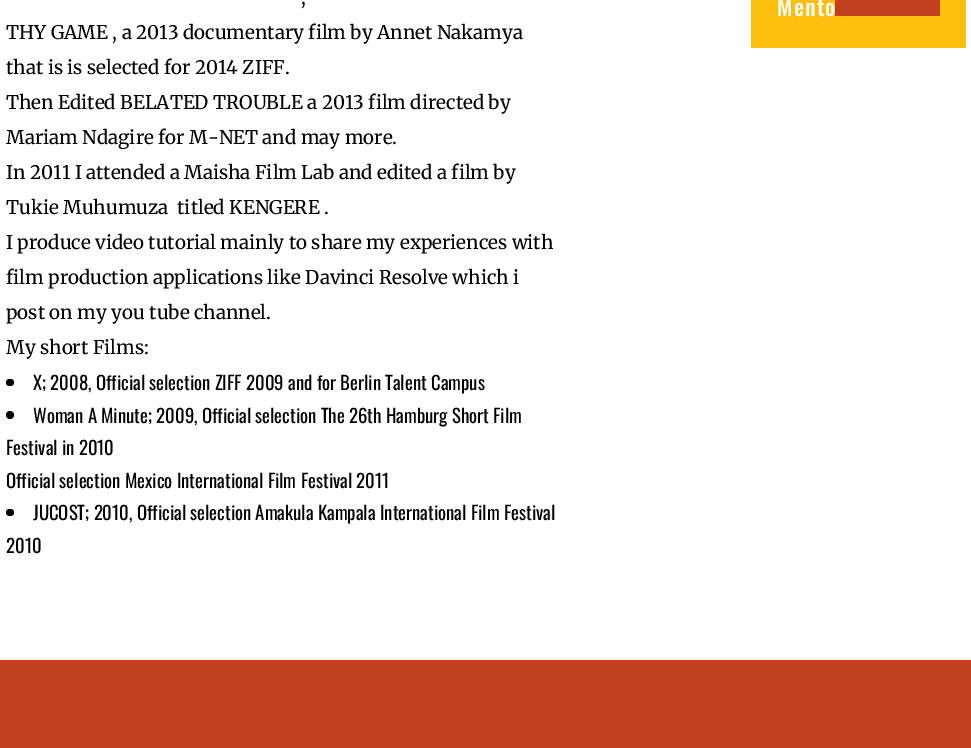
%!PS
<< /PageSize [971 748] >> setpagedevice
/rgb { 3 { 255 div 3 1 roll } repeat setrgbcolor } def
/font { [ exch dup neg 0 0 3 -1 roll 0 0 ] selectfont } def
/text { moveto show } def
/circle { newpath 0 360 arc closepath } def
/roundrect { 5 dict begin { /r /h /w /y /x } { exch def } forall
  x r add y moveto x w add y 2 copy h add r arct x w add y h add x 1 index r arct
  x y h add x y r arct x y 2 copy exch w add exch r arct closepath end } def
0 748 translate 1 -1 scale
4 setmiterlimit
255 255 255 rgb
0 0 971 748 rectfill
0 0 0 rgb
6 379 8 7 3.5 roundrect fill
10 415 4 circle fill
6 509 8 7 3.5 roundrect fill
254 190 14 rgb
751 0 215 48 rectfill
195 64 30 rgb
835 0 105 16 rectfill
0 660 971 88 rectfill
/Merriweather-Regular 18.75 font
0 0 0 rgb
(,) 301 4 text
(THY GAME , a 2013 documentary film by Annet Nakamya) 6 39 text
(that is is selected for 2014 ZIFF.) 6 74 text
(Then Edited BELATED TROUBLE a 2013 film directed by) 6 109 text
(Mariam Ndagire for M-NET and may more.) 6 144 text
(In 2011 I attended a Maisha Film Lab and edited a film by) 6 179 text
(Tukie Muhumuza  titled KENGERE .) 6 214 text
(I produce video tutorial mainly to share my experiences with) 6 249 text
(film production applications like Davinci Resolve which i) 6 284 text
(post on my you tube channel.) 6 319 text
(My short Films:) 6 354 text
/Oswald-Regular 18.75 font
(X; 2008, Official selection ZIFF 2009 and for Berlin Talent Campus) 33 390 text
(Woman A Minute; 2009, Official selection The 26th Hamburg Short Film) 33 423 text
(Festival in 2010) 6 455 text
(Official selection Mexico International Film Festival 2011) 6 488 text
(JUCOST; 2010, Official selection Amakula Kampala International Film Festival) 33 520 text
(2010) 6 553 text
/Oswald-Medium 22.5 font
255 255 255 rgb
777 16 moveto 1.25 0 (Mento) ashow
showpage
